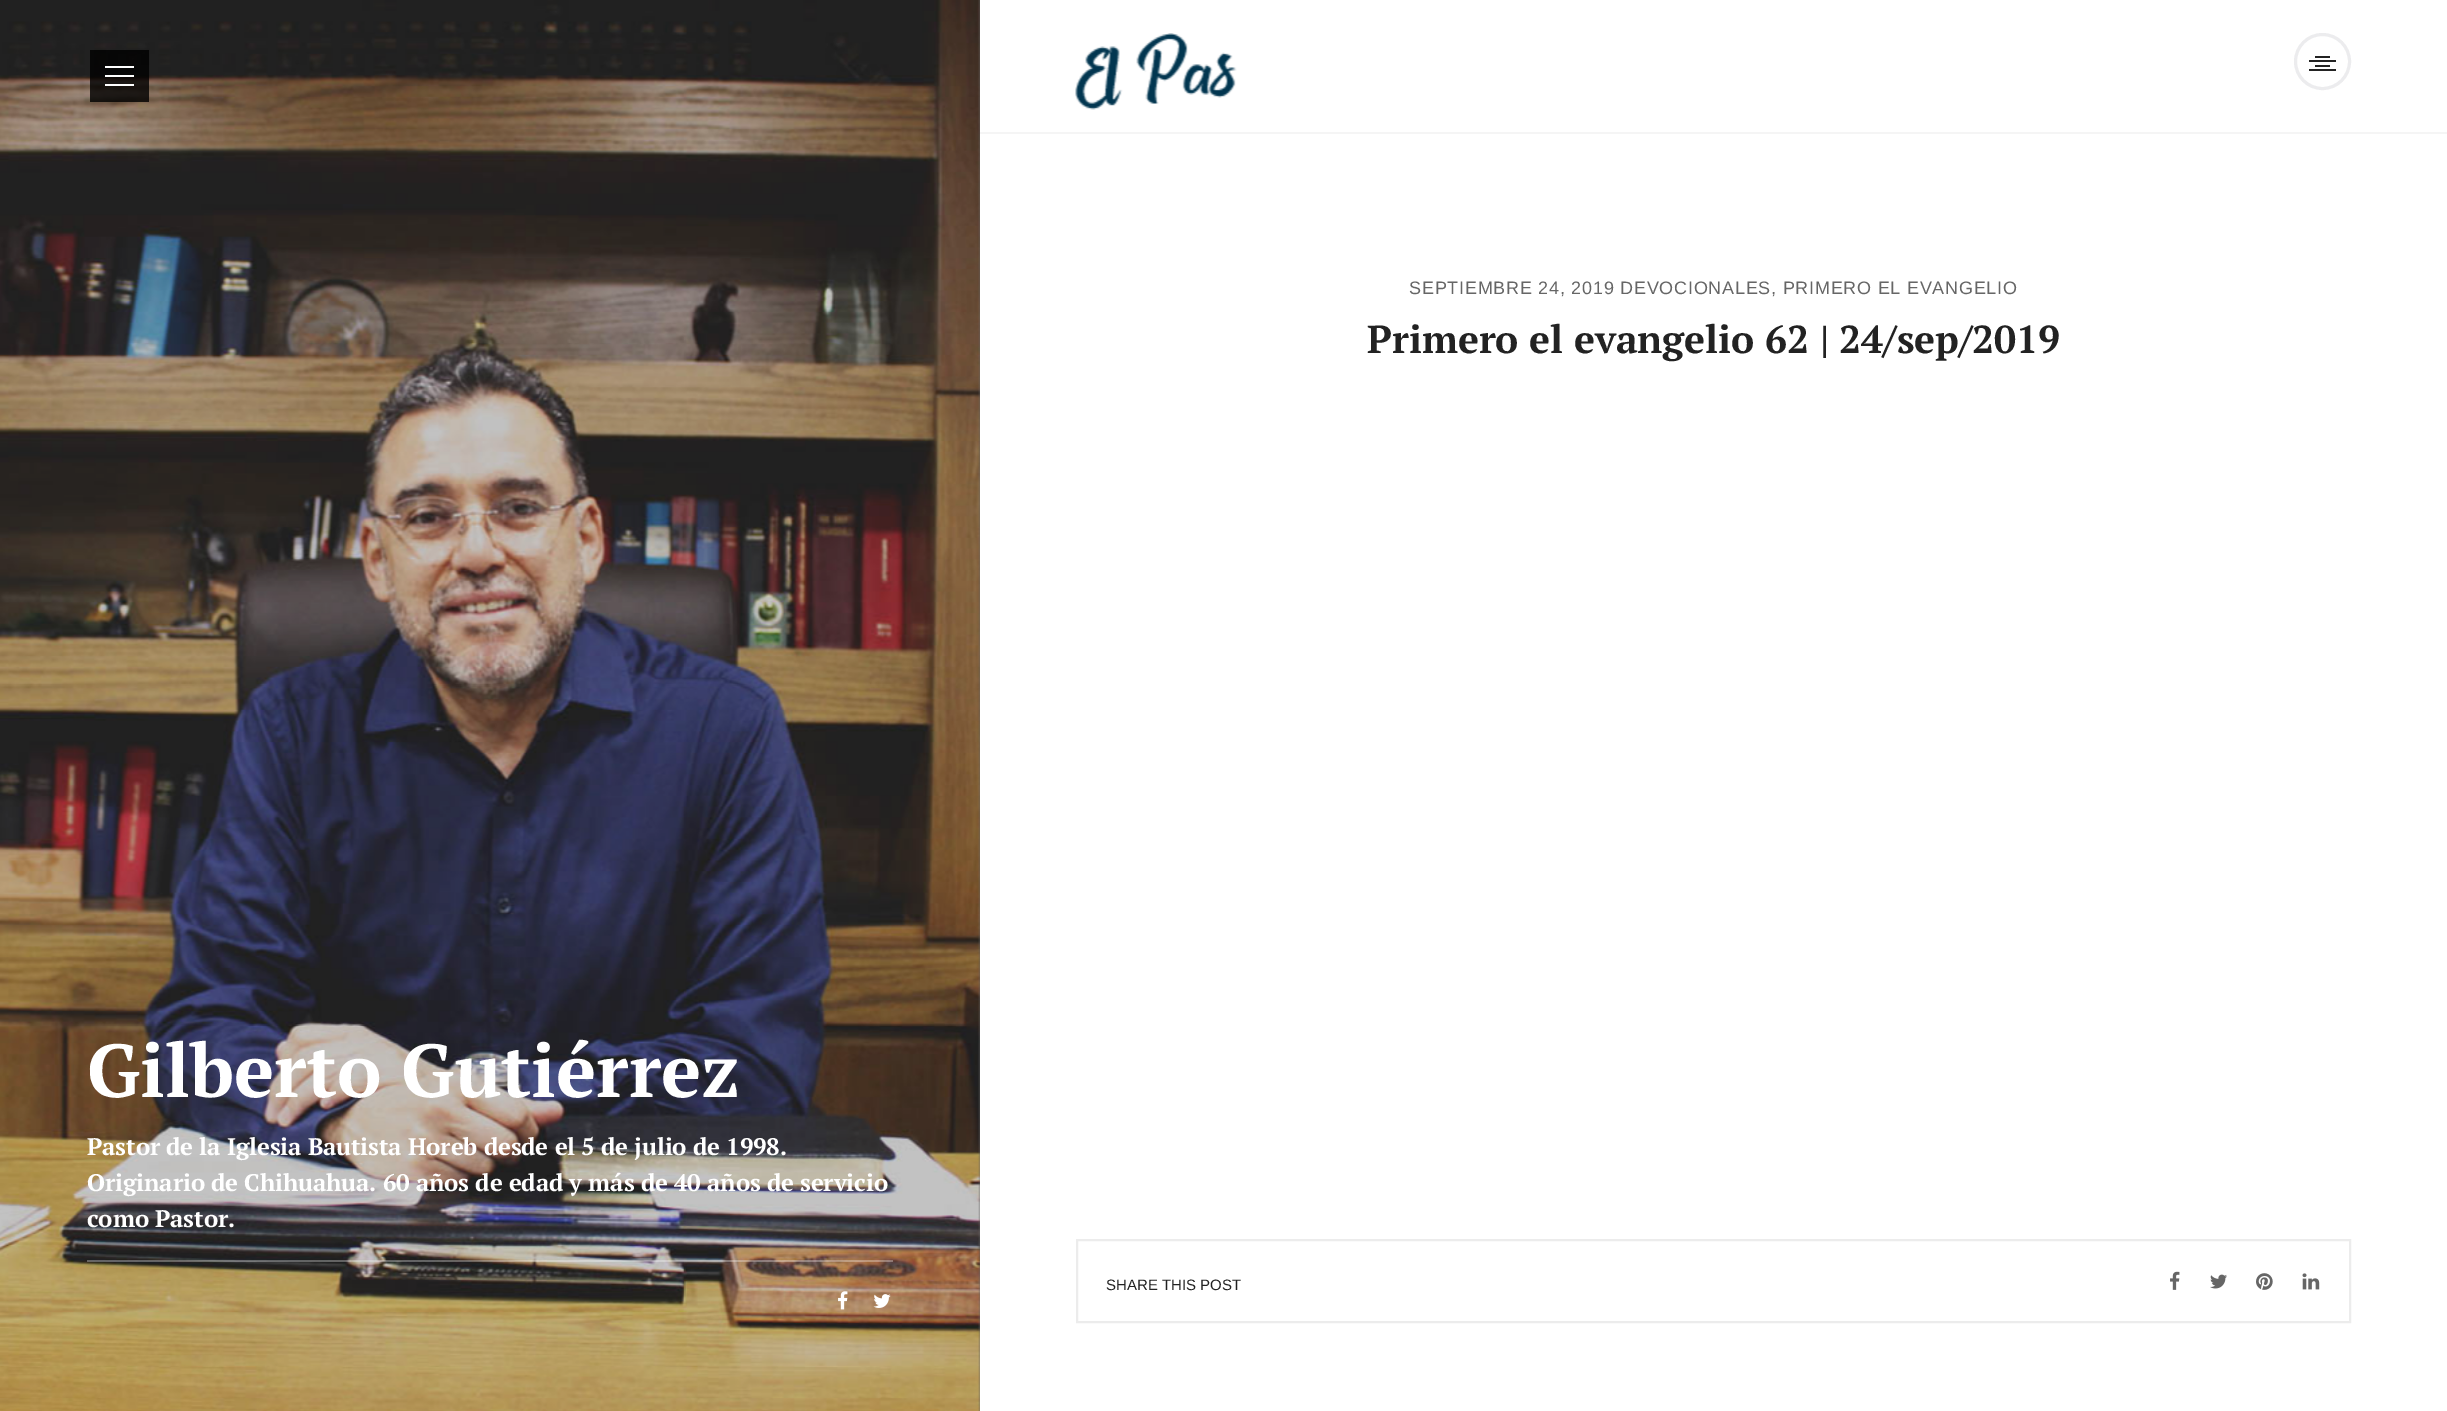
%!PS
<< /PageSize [2447 1411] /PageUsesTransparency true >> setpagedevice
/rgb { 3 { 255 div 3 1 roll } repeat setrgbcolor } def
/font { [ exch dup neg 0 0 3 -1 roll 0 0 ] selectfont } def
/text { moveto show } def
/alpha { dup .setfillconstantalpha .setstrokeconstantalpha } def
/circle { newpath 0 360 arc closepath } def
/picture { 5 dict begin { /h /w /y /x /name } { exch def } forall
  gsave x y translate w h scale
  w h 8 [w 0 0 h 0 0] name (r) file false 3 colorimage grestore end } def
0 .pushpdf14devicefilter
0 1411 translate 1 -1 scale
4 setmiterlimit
255 255 255 rgb
0 0 2447 1411 rectfill
245 245 245 rgb
980 132 1467 2 rectfill
(img_01.rgb) 1075 33 162 77 picture
236 236 238 rgb
3 setlinewidth
2322.5 61.5 27 circle stroke
35 35 35 rgb
2315 56 15 2 rectfill
2309 60 27 2 rectfill
2315 65 15 2 rectfill
2309 69 27 2 rectfill
100 100 100 rgb
978 0 2 1411 rectfill
(img_02.rgb) 0 0 980 1411 picture
0.8 alpha
0 0 0 rgb
90 50 59 52 rectfill
1 alpha
255 255 255 rgb
105 66 29 2 rectfill
105 75 29 2 rectfill
105 84 29 2 rectfill
0.3 alpha
87 1260 806 2 rectfill
1 alpha
(img_03.rgb) 838 1291 10 19 picture
(img_04.rgb) 873 1294 18 14 picture
236 236 236 rgb
2 setlinewidth
1077 1240 1273 82 rectstroke
(img_05.rgb) 2170 1271 10 19 picture
(img_06.rgb) 2210 1274 17 15 picture
(img_07.rgb) 2256 1273 17 17 picture
(img_08.rgb) 2302 1273 18 17 picture
/PTSerif-Bold 75 font
255 255 255 rgb
(Gilberto Gutiérrez) 87 1097 text
/PTSerif-Bold 24 font
87 1155 moveto -0.15 0 (Pastor de la Iglesia Bautista Horeb desde el 5 de julio de 1998.) ashow
87 1191 moveto -0.15 0 (Originario de Chihuahua. 60 años de edad y más de 40 años de servicio) ashow
87 1227 moveto -0.15 0 (como Pastor.) ashow
/LiberationSans-Regular 18 font
102 102 102 rgb
1409 294 moveto 0.75 0 (SEPTIEMBRE 24, 2019 DEVOCIONALES, PRIMERO EL EVANGELIO) ashow
/PTSerif-Bold 39 font
34 34 34 rgb
(Primero el evangelio 62 | 24/sep/2019) 1367 353 text
/LiberationSans-Regular 15 font
(SHARE THIS POST) 1106 1290 text
.poppdf14devicefilter showpage
